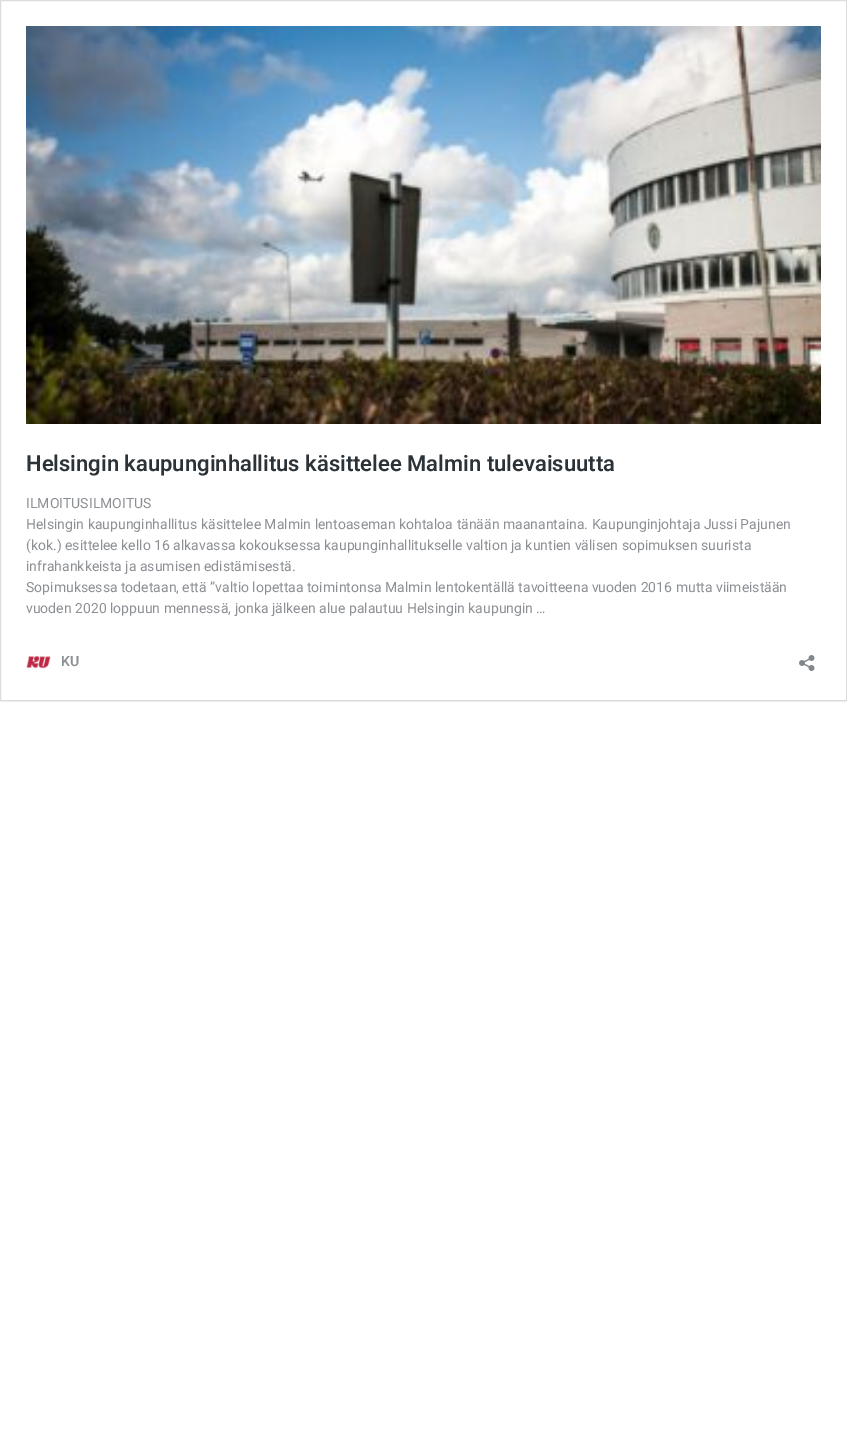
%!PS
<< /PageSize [847 1448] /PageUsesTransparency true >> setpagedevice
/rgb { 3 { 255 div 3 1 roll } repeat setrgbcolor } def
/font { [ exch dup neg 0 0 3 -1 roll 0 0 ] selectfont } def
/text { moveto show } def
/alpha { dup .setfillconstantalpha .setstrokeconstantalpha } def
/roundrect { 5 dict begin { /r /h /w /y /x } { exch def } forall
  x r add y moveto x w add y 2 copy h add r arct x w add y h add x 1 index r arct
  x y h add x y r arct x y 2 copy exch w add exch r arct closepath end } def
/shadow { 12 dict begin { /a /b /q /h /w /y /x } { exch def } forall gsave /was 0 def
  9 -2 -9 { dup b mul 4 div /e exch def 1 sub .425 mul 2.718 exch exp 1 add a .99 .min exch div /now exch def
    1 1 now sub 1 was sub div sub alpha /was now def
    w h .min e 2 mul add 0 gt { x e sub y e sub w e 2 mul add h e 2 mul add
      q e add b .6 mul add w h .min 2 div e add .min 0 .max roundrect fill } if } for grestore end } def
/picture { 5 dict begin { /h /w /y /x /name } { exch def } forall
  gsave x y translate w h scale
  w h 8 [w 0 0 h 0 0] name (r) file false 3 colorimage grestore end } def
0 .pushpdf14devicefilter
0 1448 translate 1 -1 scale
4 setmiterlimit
255 255 255 rgb
0 0 847 1448 rectfill
gsave
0 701 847 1 rectclip
0 0 0 rgb
0 1 847 701 0 0.5 0.05 shadow
grestore
220 220 222 rgb
0.5 0.5 846 700 rectstroke
(img_01.rgb) 26 26 795 398 picture
(img_02.rgb) 26 655 25 14 picture
(img_03.rgb) 799 655 16 16 picture
/Roboto-SemiBold 22 font
44 51 56 rgb
(Helsingin kaupunginhallitus käsittelee Malmin tulevaisuutta) 26 471 text
/Roboto-Regular 14 font
140 143 148 rgb
(ILMOITUSILMOITUS) 26 508 text
(Helsingin kaupunginhallitus käsittelee Malmin lentoaseman kohtaloa tänään maanantaina. Kaupunginjohtaja Jussi Pajunen) 26 529 text
(\(kok.\) esittelee kello 16 alkavassa kokouksessa kaupunginhallitukselle valtion ja kuntien välisen sopimuksen suurista) 26 550 text
(infrahankkeista ja asumisen edistämisestä.) 26 571 text
(Sopimuksessa todetaan, että ”valtio lopettaa toimintonsa Malmin lentokentällä tavoitteena vuoden 2016 mutta viimeistään) 26 592 text
(vuoden 2020 loppuun mennessä, jonka jälkeen alue palautuu Helsingin kaupungin …) 26 613 text
/Roboto-SemiBold 14 font
(KU) 61 666 text
.poppdf14devicefilter showpage
